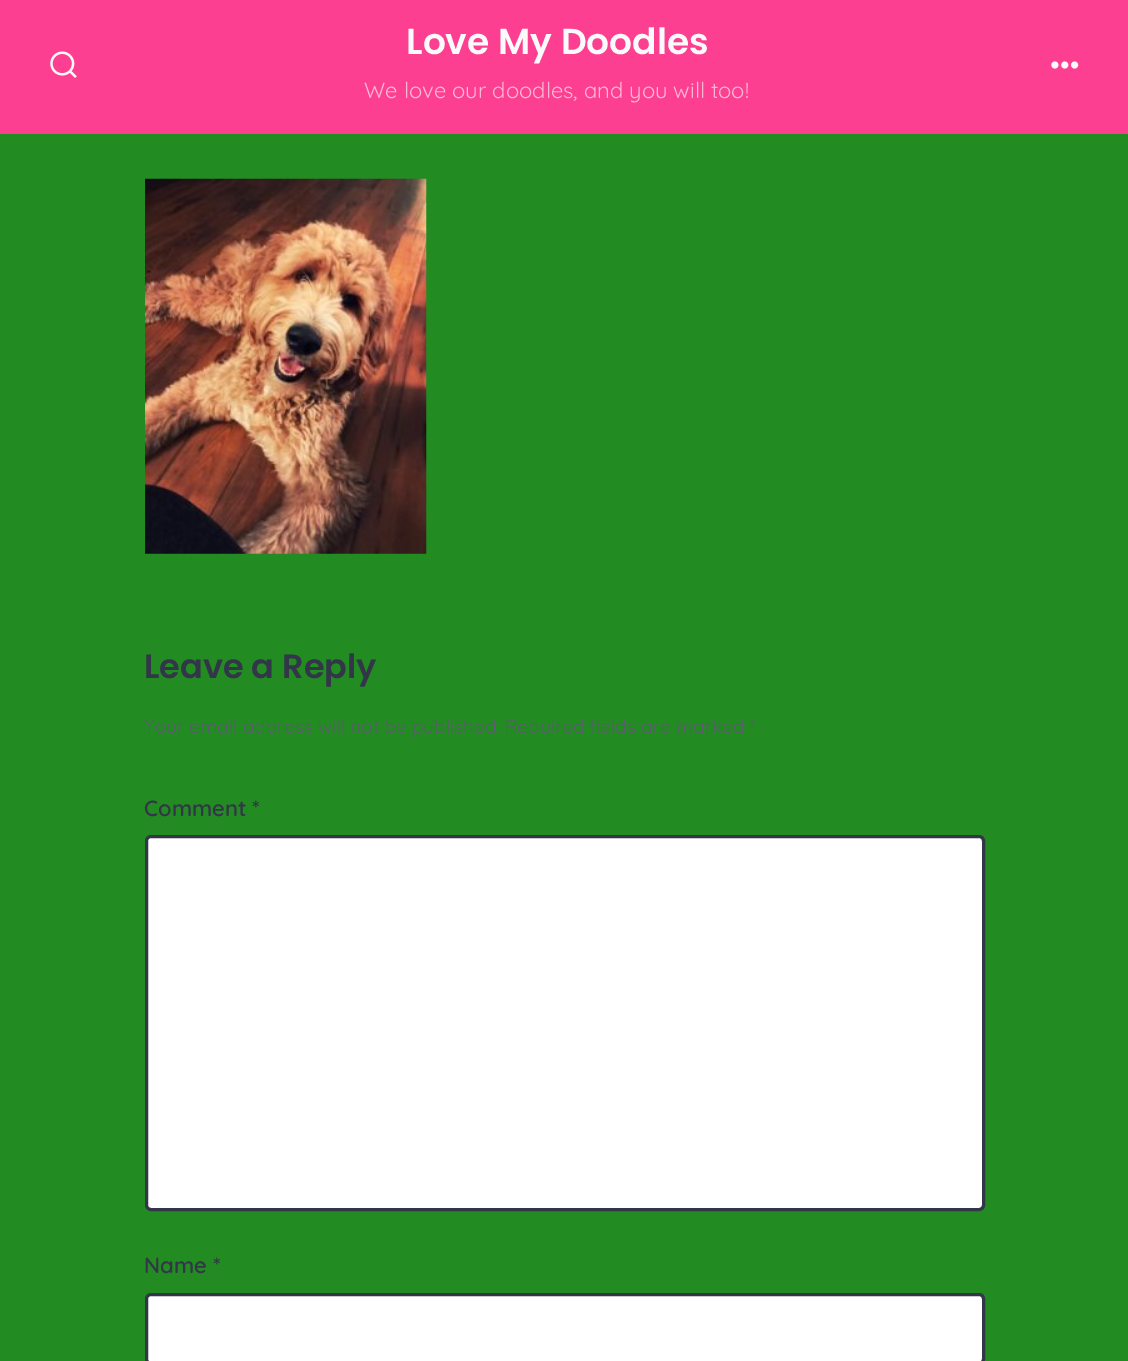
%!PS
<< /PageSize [1128 1361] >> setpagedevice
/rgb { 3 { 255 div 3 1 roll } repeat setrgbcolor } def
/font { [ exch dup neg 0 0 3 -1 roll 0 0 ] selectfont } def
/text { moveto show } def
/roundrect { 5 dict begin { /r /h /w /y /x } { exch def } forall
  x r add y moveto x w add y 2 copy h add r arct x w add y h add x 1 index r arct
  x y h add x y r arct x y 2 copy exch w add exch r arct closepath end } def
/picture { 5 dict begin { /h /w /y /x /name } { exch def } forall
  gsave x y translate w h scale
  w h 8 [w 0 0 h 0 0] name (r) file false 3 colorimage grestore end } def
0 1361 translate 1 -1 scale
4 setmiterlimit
34 139 34 rgb
0 0 1128 1361 rectfill
253 63 145 rgb
0 0 1128 134 rectfill
(img_01.rgb) 50 51 27 27 picture
(img_02.rgb) 1051 61 28 8 picture
(img_03.rgb) 145 178 282 376 picture
255 255 255 rgb
146.5 836.5 837 373 4.5 roundrect gsave fill grestore
50 54 72 rgb
3 setlinewidth
stroke
255 255 255 rgb
146.5 1294.5 837 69 4.5 roundrect gsave fill grestore
50 54 72 rgb
stroke
/Poppins-SemiBold 36 font
250 250 250 rgb
(Love My Doodles) 406 54 text
/Quicksand-Regular 22 font
251 185 213 rgb
(We love our doodles, and you will too!) 364 98 text
/Poppins-SemiBold 33.5 font
50 54 72 rgb
(Leave a Reply) 144 678 text
/Quicksand-Regular 19 font
90 93 108 rgb
(Your email address will not be published. Required fields are marked *) 144 733 text
/Quicksand-SemiBold 22 font
50 54 72 rgb
(Comment *) 144 816 text
(Name *) 144 1273 text
showpage
